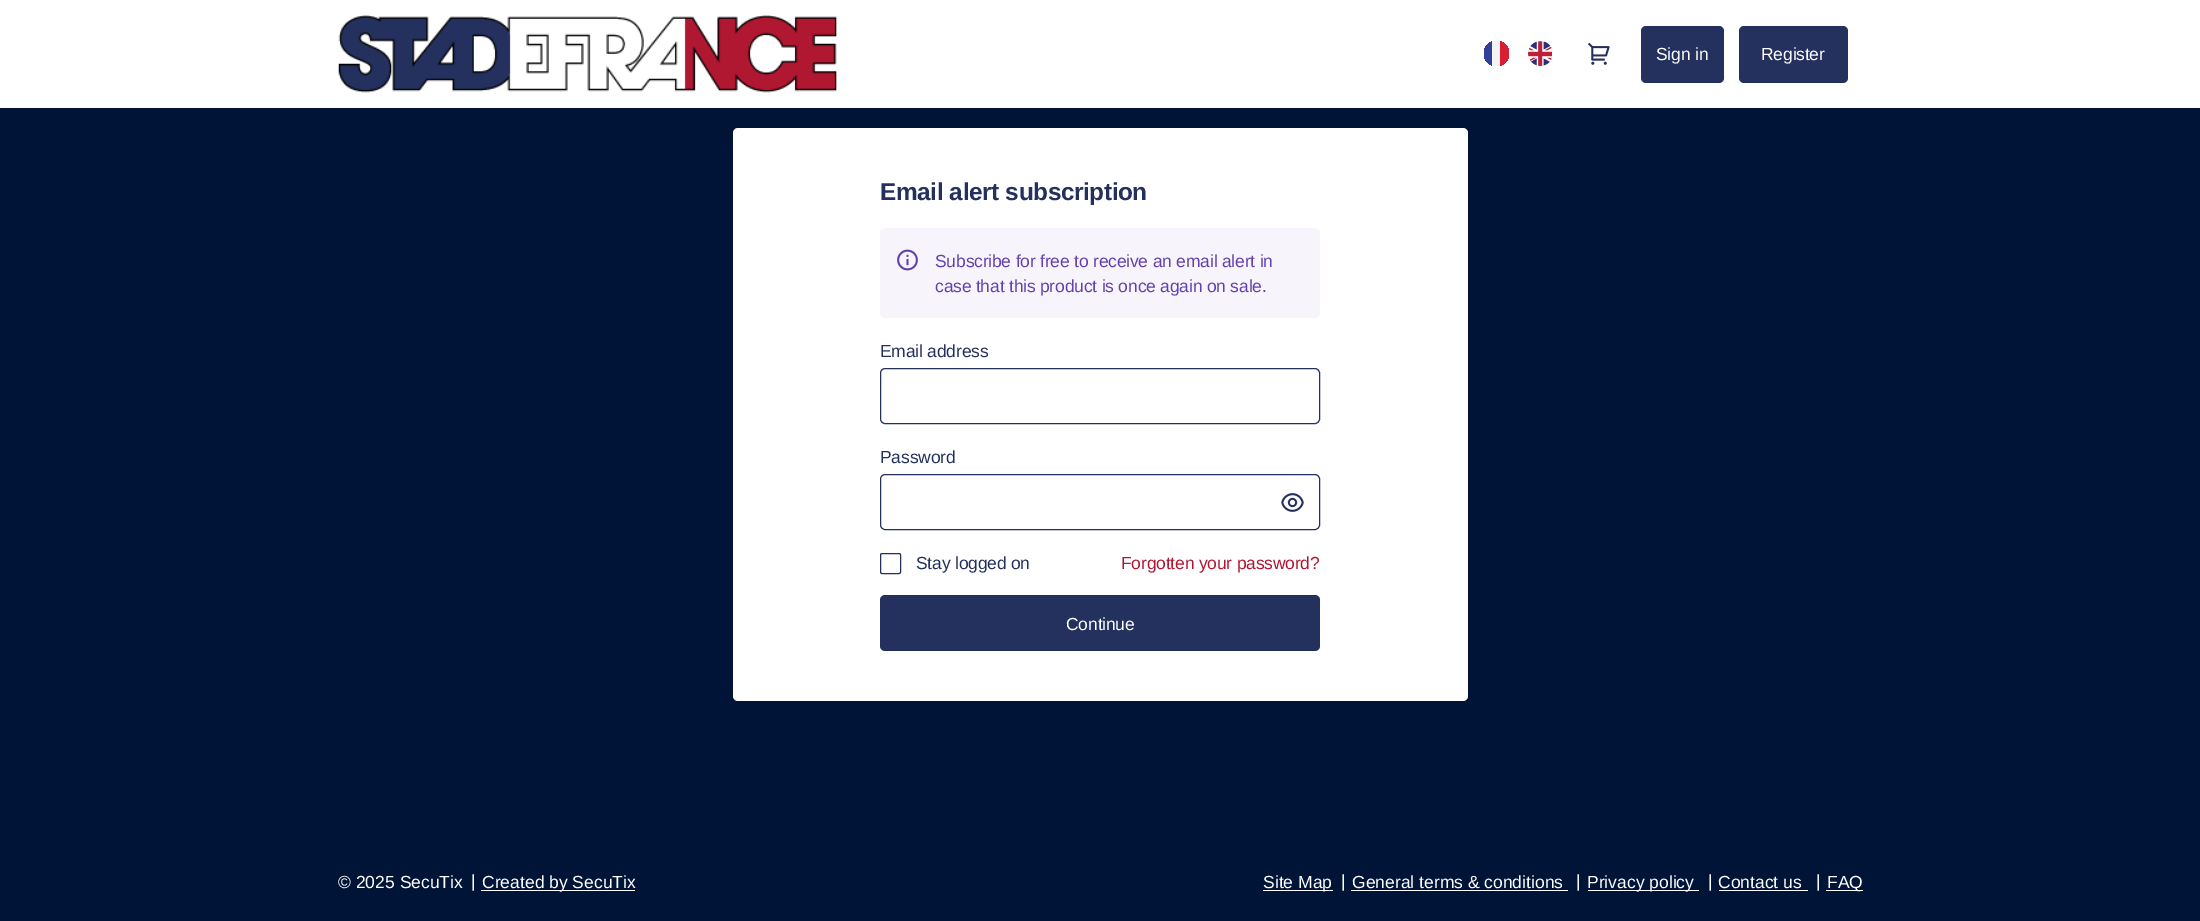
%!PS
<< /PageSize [2200 921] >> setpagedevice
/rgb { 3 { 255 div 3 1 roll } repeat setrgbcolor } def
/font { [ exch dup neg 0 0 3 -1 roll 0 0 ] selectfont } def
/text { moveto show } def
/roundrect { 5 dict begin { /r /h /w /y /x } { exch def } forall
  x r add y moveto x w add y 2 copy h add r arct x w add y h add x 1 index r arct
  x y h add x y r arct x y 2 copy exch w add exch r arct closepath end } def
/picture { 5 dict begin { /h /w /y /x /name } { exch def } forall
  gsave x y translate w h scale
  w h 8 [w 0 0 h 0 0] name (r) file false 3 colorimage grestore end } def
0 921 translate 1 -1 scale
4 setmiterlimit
0 20 55 rgb
0 0 2200 921 rectfill
255 255 255 rgb
0 0 2200 108 rectfill
(img_01.rgb) 338 15 499 78 picture
gsave
1484 41 25 25 12.5 roundrect clip newpath
50 64 149 rgb
1484 41 8 25 rectfill
244 244 244 rgb
1492 41 8 25 rectfill
216 30 52 rgb
1500 41 9 25 rectfill
grestore
(img_02.rgb) 1528 41 24 25 picture
(img_03.rgb) 1588 42 22 23 picture
36 48 94 rgb
1641 26 83 57 5 roundrect fill
1739 26 109 57 5 roundrect fill
255 255 255 rgb
733 128 735 573 5 roundrect fill
247 245 251 rgb
880 228 440 90 5 roundrect fill
(img_04.rgb) 897 249 21 22 picture
36 48 94 rgb
880.5 368.5 439 55 4.5 roundrect stroke
880.5 474.5 439 55 4.5 roundrect stroke
(img_05.rgb) 1281 493 23 19 picture
880.5 553.5 20 20 1.5 roundrect stroke
880 595 440 56 5 roundrect fill
255 255 255 rgb
481 890 154 1 rectfill
1263 890 70 1 rectfill
1351 890 217 1 rectfill
1588 890 111 1 rectfill
1719 890 89 1 rectfill
1826 890 37 1 rectfill
/LiberationSans-Regular 17.5 font
1656 60 moveto -0.2 0 (Sign in) ashow
1761 60 moveto -0.2 0 (Register) ashow
/LiberationSans-Bold 24.4 font
36 48 94 rgb
880 200 moveto -0.4 0 (Email alert subscription) ashow
/LiberationSans-Regular 17.5 font
99 64 174 rgb
935 267 moveto -0.2 0 (Subscribe for free to receive an email alert in) ashow
935 292 moveto -0.2 0 (case that this product is once again on sale.) ashow
36 48 94 rgb
880 357 moveto -0.2 0 (Email address) ashow
880 463 moveto -0.2 0 (Password) ashow
916 569 moveto -0.2 0 (Stay logged on) ashow
176 23 49 rgb
1121 569 moveto -0.2 0 (Forgotten your password?) ashow
255 255 255 rgb
1066 630 moveto -0.2 0 (Continue) ashow
(© 2025 SecuTix) 338 888 text
(|) 471 887 text
(Created by SecuTix) 482 888 text
(Site Map) 1263 888 text
(|) 1341 887 text
(General terms & conditions) 1352 888 text
(|) 1576 887 text
(Privacy policy) 1587 888 text
(|) 1708 887 text
(Contact us) 1718 888 text
(|) 1816 887 text
(FAQ) 1827 888 text
showpage
